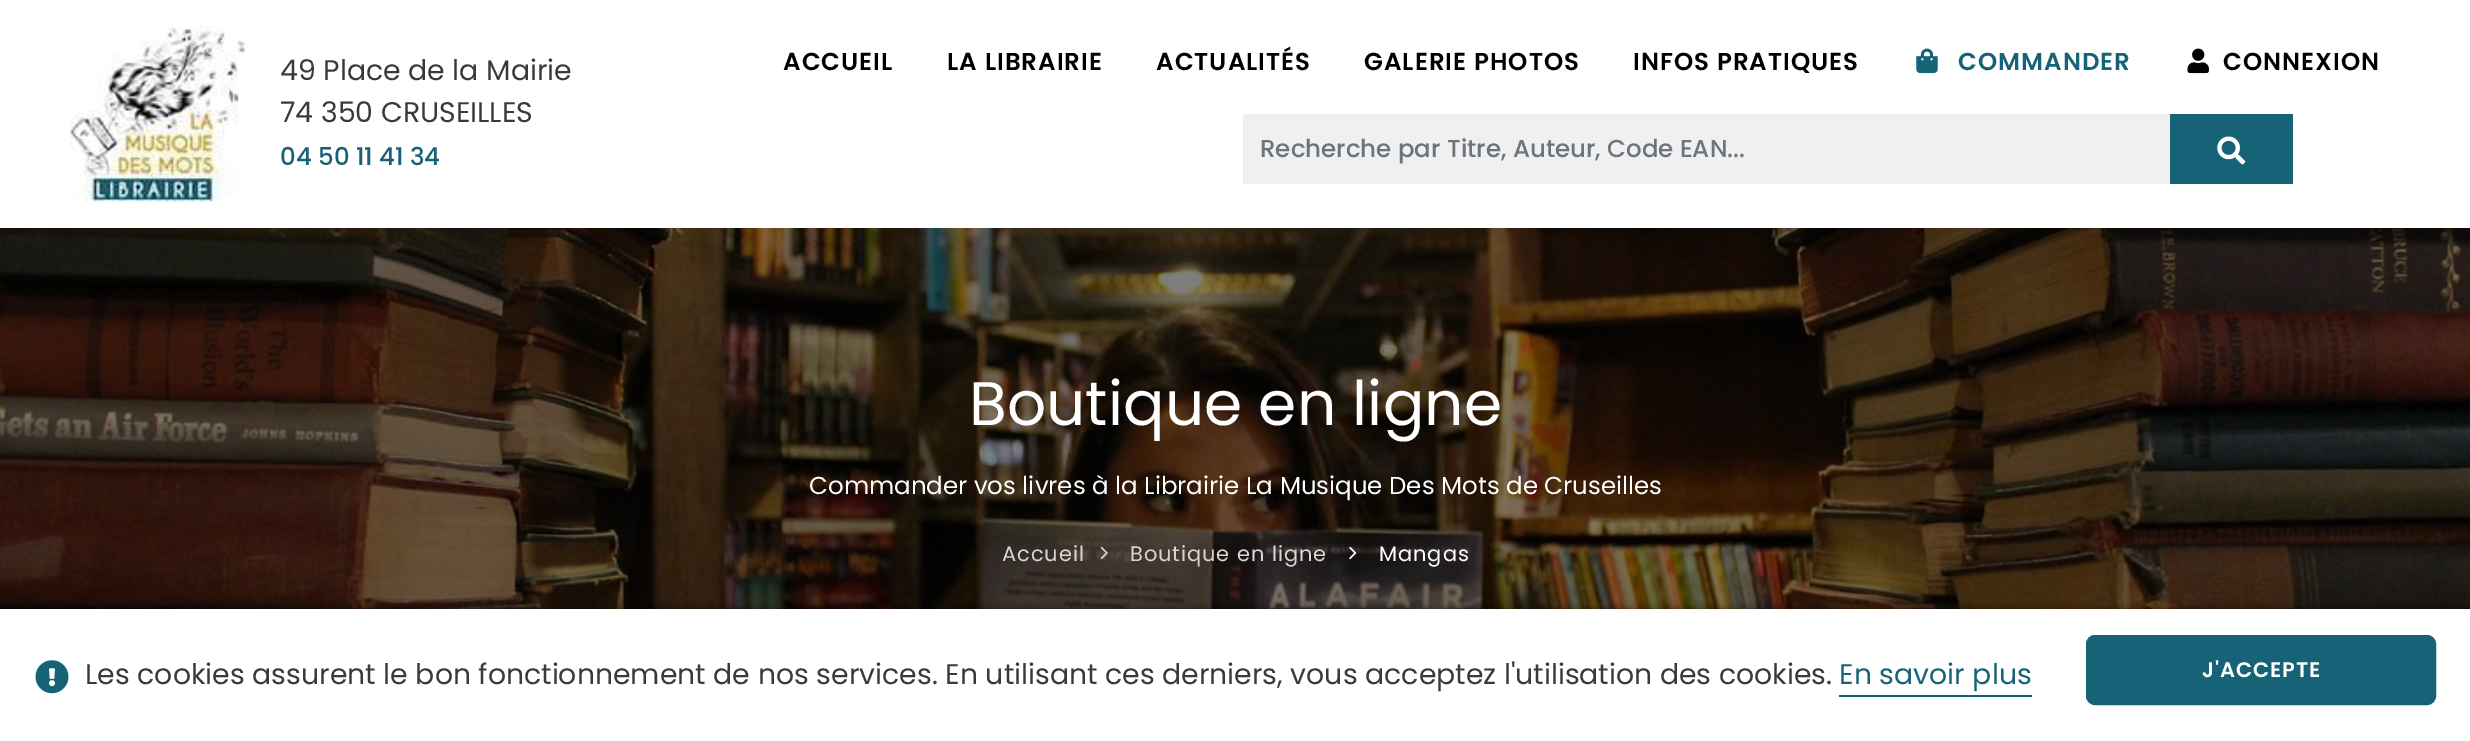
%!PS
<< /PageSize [2470 741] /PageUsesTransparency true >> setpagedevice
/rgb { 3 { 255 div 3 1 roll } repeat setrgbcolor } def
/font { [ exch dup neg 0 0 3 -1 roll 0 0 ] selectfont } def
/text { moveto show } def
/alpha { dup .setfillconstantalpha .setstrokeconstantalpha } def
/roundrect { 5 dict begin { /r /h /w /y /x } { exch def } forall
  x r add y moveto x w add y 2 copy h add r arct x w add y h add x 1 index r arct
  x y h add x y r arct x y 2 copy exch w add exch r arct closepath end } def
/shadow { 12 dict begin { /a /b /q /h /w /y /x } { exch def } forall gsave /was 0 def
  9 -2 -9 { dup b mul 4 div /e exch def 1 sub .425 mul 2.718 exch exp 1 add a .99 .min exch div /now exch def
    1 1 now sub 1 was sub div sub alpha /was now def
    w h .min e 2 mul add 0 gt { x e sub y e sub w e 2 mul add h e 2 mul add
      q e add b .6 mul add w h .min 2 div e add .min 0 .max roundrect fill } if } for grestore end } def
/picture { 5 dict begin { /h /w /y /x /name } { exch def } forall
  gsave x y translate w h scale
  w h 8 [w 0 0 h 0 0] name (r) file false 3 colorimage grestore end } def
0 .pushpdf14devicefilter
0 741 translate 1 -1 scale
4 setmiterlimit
255 255 255 rgb
0 0 2470 741 rectfill
(img_01.rgb) 70 26 175 176 picture
(img_02.rgb) 1916 48 22 26 picture
(img_03.rgb) 2187 48 22 26 picture
240 240 240 rgb
1243 114 927 70 rectfill
22 99 119 rgb
2170 114 123 70 rectfill
(img_04.rgb) 2217 136 29 29 picture
(img_05.rgb) 0 228 2470 381 picture
(img_06.rgb) 1100 546 8 14 picture
(img_07.rgb) 1349 546 8 14 picture
0 0 0 rgb
0 609 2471 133 0 4.5 0.5 shadow
255 255 255 rgb
0 609 2470 132 rectfill
(img_08.rgb) 35 660 34 34 picture
22 99 119 rgb
1839 695 193 2 rectfill
2087 636 348 68 8 roundrect gsave fill grestore
2 setlinewidth
stroke
/Poppins-Regular 28.35 font
58 58 58 rgb
(49 Place de la Mairie) 280 80 text
(74 350 CRUSEILLES) 280 122 text
/Poppins-Medium 24.5 font
22 99 119 rgb
(04 50 11 41 34) 280 165 text
/Poppins-SemiBold 24.5 font
0 0 0 rgb
783 70 moveto 1 0 (ACCUEIL) ashow
947 70 moveto 1 0 (LA LIBRAIRIE) ashow
1156 70 moveto 1 0 (ACTUALITÉS) ashow
1364 70 moveto 1 0 (GALERIE PHOTOS) ashow
1633 70 moveto 1 0 (INFOS PRATIQUES) ashow
22 99 119 rgb
1958 70 moveto 1 0 (COMMANDER) ashow
0 0 0 rgb
2223 70 moveto 1 0 (CONNEXION) ashow
/Poppins-Medium 24.5 font
108 117 125 rgb
(Recherche par Titre, Auteur, Code EAN...) 1260 157 text
/Poppins-Regular 61.5 font
255 255 255 rgb
(Boutique en ligne) 969 425 text
/Poppins-Regular 24.5 font
(Commander vos livres à la Librairie La Musique Des Mots de Cruseilles) 809 494 text
/Poppins-Regular 21 font
215 214 212 rgb
1002 561 moveto 0.9 0 (Accueil) ashow
1130 561 moveto 0.9 0 (Boutique en ligne) ashow
255 255 255 rgb
1379 561 moveto 0.9 0 (Mangas) ashow
/Poppins-Regular 28.35 font
58 58 58 rgb
(Les cookies assurent le bon fonctionnement de nos services. En utilisant ces derniers, vous acceptez l'utilisation des cookies.) 85 684 text
22 99 119 rgb
(En savoir plus) 1839 684 text
/Poppins-SemiBold 21 font
255 255 255 rgb
2202 677 moveto 0.9 0 (J'ACCEPTE) ashow
.poppdf14devicefilter showpage
